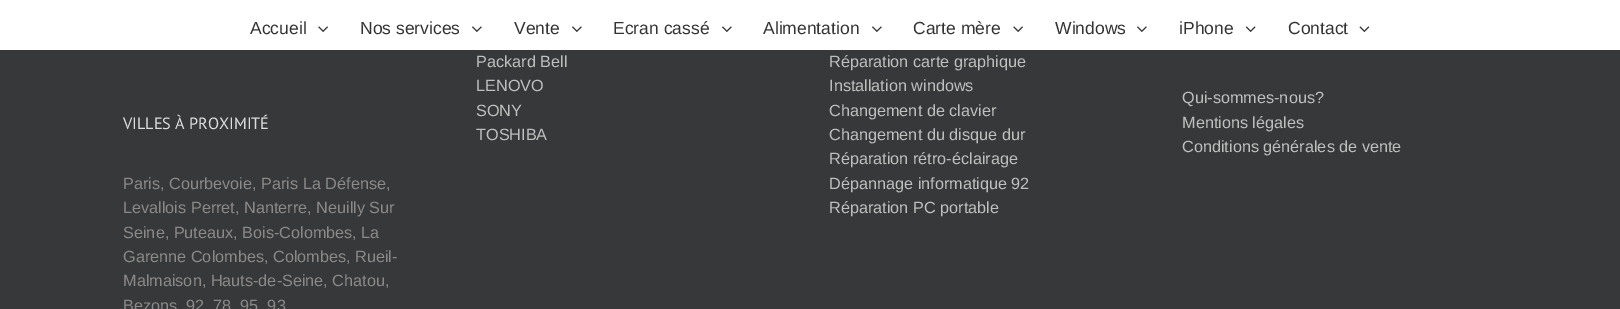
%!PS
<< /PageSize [1620 309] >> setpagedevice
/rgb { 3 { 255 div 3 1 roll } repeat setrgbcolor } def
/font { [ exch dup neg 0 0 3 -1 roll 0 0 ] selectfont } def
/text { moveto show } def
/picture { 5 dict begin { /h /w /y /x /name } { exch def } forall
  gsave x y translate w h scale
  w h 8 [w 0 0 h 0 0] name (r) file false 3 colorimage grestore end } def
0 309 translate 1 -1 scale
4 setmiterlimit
54 56 57 rgb
0 0 1620 309 rectfill
255 255 255 rgb
0 0 1620 50 rectfill
(img_01.rgb) 318 26 10 6 picture
(img_02.rgb) 472 26 10 6 picture
(img_02.rgb) 572 26 10 6 picture
(img_02.rgb) 722 26 10 6 picture
(img_02.rgb) 872 26 10 6 picture
(img_01.rgb) 1013 26 10 6 picture
(img_02.rgb) 1137 26 10 6 picture
(img_03.rgb) 1245 26 11 6 picture
(img_04.rgb) 1359 26 11 6 picture
/LiberationSans-Regular 17.5 font
51 51 51 rgb
(Accueil) 250 34 text
(Nos services) 360 34 text
(Vente) 514 34 text
(Ecran cassé) 613 34 text
(Alimentation) 763 34 text
(Carte mère) 913 34 text
(Windows) 1055 34 text
(iPhone) 1179 34 text
(Contact) 1288 34 text
/PTSans-Regular 16.25 font
221 221 221 rgb
(VILLES À PROXIMITÉ) 123 129 text
/LiberationSans-Regular 16.25 font
140 137 137 rgb
(Paris, Courbevoie, Paris La Défense,) 123 189 text
(Levallois Perret, Nanterre, Neuilly Sur) 123 213 text
(Seine, Puteaux, Bois-Colombes, La) 123 238 text
(Garenne Colombes, Colombes, Rueil-) 123 262 text
(Malmaison, Hauts-de-Seine, Chatou,) 123 286 text
(Bezons, 92, 78, 95, 93) 123 311 text
191 191 191 rgb
(Packard Bell) 476 67 text
(LENOVO) 476 91 text
(SONY) 476 116 text
(TOSHIBA) 476 140 text
(Réparation carte graphique) 829 67 text
(Installation windows) 829 91 text
(Changement de clavier) 829 116 text
(Changement du disque dur) 829 140 text
(Réparation rétro-éclairage) 829 164 text
(Dépannage informatique 92) 829 189 text
(Réparation PC portable) 829 213 text
(Qui-sommes-nous?) 1182 103 text
(Mentions légales) 1182 128 text
(Conditions générales de vente) 1182 152 text
showpage
